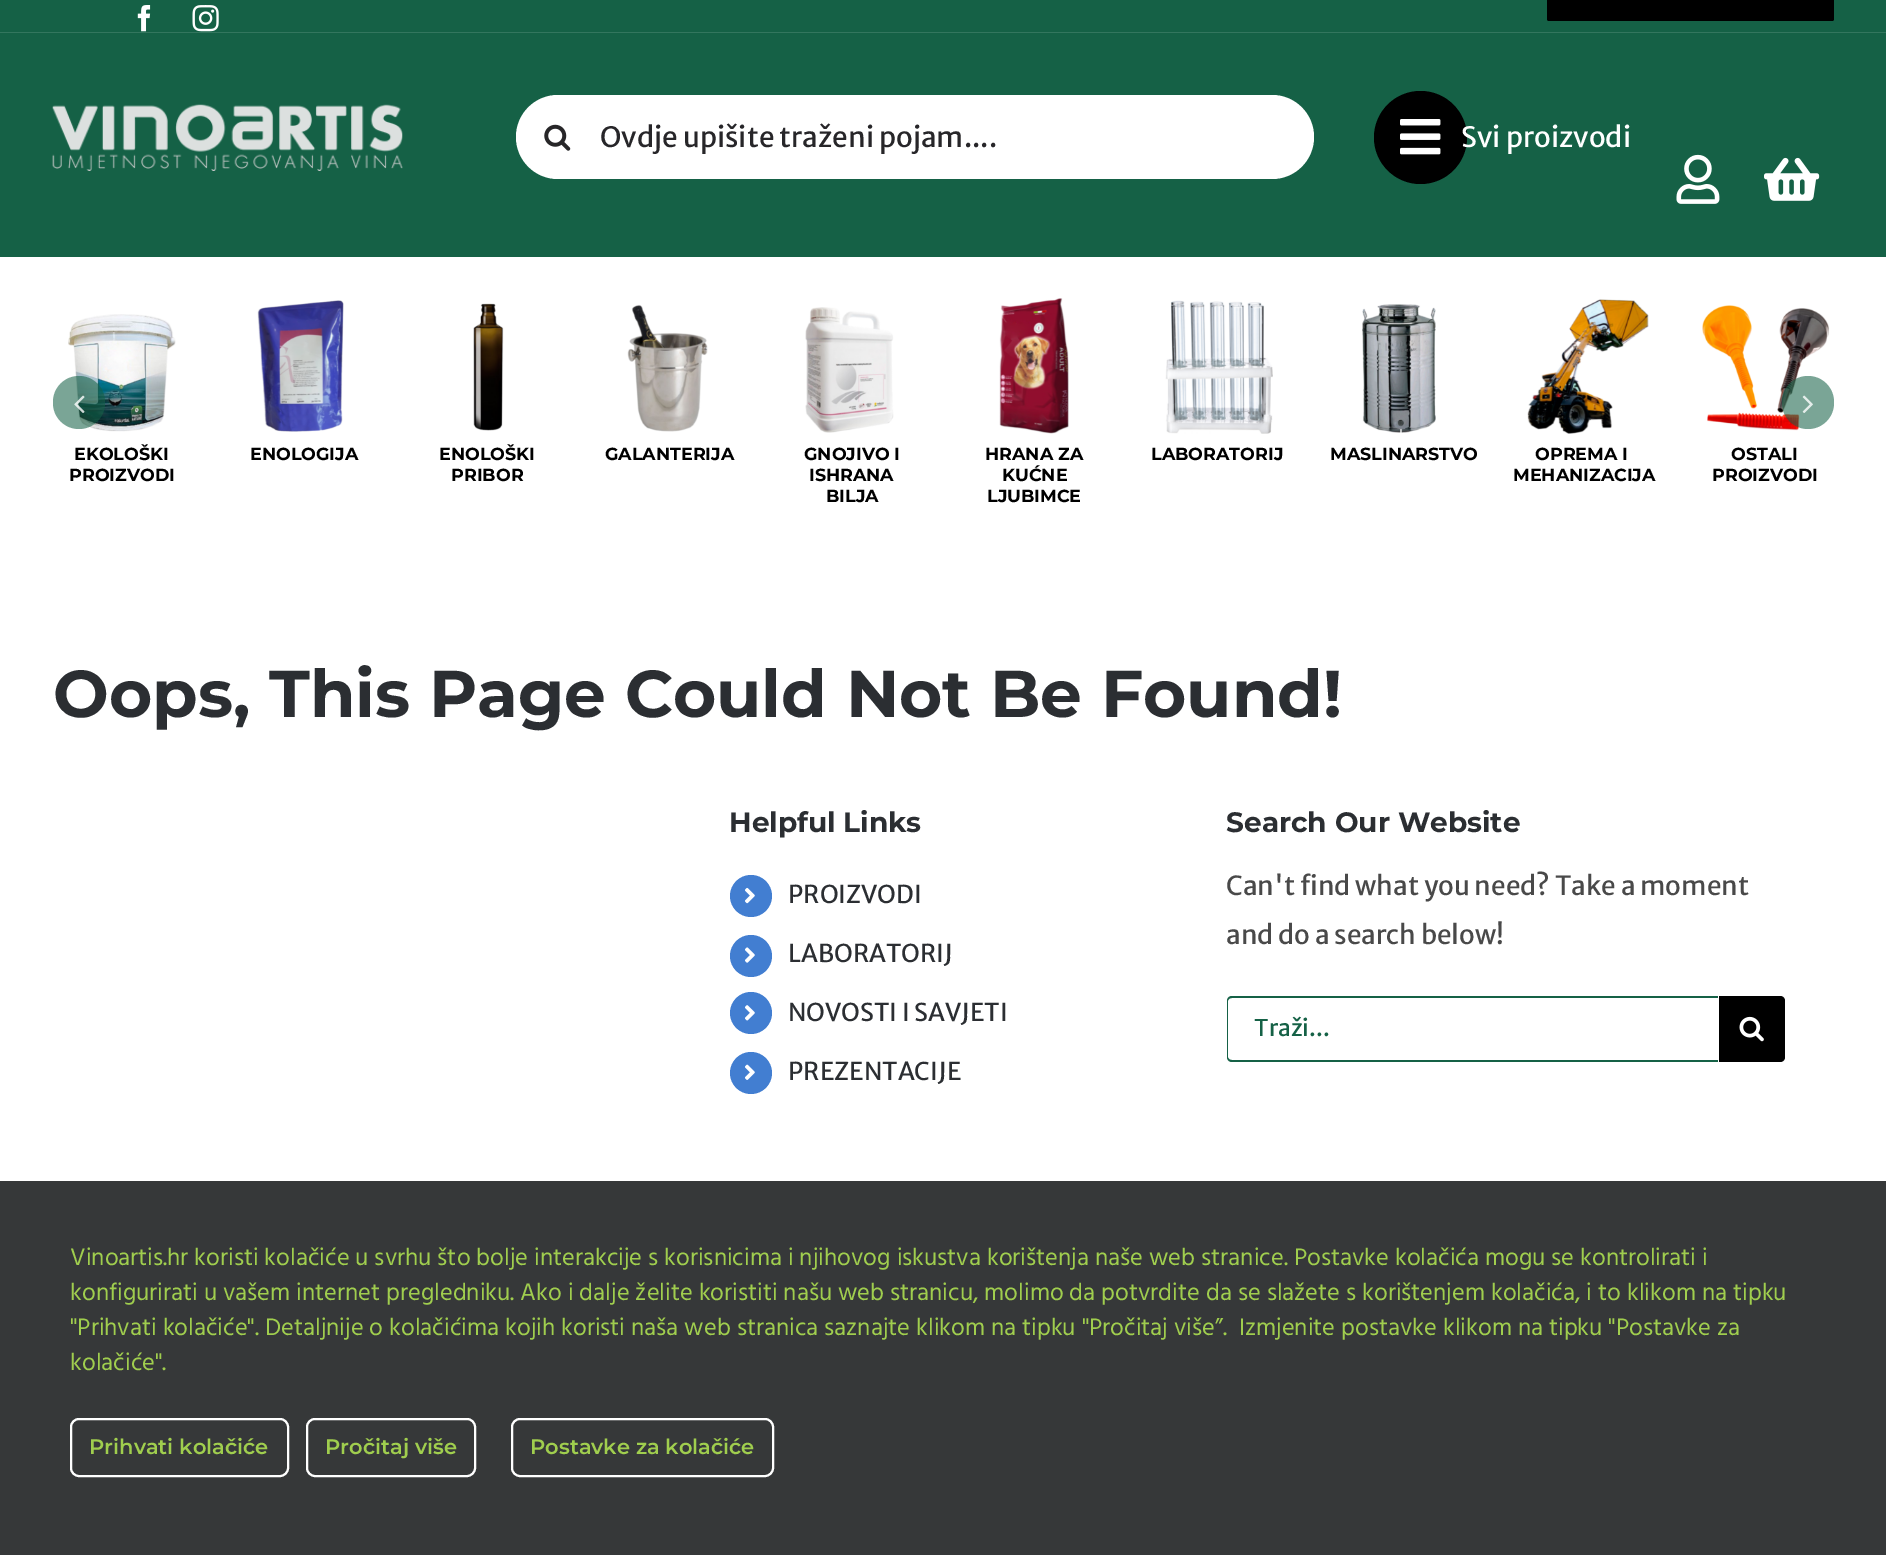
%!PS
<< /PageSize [1886 1555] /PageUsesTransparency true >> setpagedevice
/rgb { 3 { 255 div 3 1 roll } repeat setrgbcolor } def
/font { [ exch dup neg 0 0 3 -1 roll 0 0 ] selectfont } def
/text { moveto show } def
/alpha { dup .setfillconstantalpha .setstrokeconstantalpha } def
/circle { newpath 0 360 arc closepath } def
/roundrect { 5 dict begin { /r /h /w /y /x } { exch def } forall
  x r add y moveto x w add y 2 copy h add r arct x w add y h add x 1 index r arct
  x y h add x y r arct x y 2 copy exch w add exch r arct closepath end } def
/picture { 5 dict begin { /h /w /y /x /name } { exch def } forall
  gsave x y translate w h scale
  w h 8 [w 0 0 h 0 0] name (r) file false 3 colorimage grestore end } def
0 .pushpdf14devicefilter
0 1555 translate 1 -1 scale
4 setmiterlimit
255 255 255 rgb
0 0 1886 1555 rectfill
21 97 70 rgb
0 0 1886 32 rectfill
51 118 94 rgb
0 32 1886 1 rectfill
(img_01.rgb) 137 5 14 27 picture
(img_02.rgb) 192 5 27 27 picture
0 0 0 rgb
1547 -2 287 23 2 roundrect fill
21 97 70 rgb
0 33 1886 224 rectfill
(img_03.rgb) 52 104 351 67 picture
255 255 255 rgb
516 95 798 84 42 roundrect fill
(img_04.rgb) 544 124 27 27 picture
0 0 0 rgb
1420.5 137.5 46.5 circle fill
(img_05.rgb) 1400 119 41 36 picture
(img_06.rgb) 1676 154 44 50 picture
(img_07.rgb) 1764 157 56 44 picture
(img_10.rgb) 68 314 108 118 picture
0.57 alpha
21 97 70 rgb
53 376 52 53 26 roundrect fill
1 alpha
(img_08.rgb) 74 395 11 18 picture
(img_19.rgb) 1702 305 128 126 picture
0.57 alpha
1782 376 52 53 26 roundrect fill
1 alpha
(img_09.rgb) 1802 395 11 18 picture
(img_11.rgb) 257 300 87 132 picture
(img_12.rgb) 473 303 31 128 picture
(img_13.rgb) 627 304 81 128 picture
(img_14.rgb) 805 307 89 126 picture
(img_15.rgb) 999 298 70 136 picture
(img_16.rgb) 1165 300 108 134 picture
(img_17.rgb) 1362 304 74 129 picture
(img_18.rgb) 1527 299 122 135 picture
66 126 209 rgb
751 896 21 circle fill
(img_20.rgb) 745 887 10 17 picture
751 956 21 circle fill
(img_21.rgb) 745 947 10 16 picture
751 1013 21 circle fill
(img_22.rgb) 745 1005 10 16 picture
751 1073 21 circle fill
(img_23.rgb) 745 1064 10 16 picture
21 97 70 rgb
1232 996 moveto -3 0 -5 2 -5 5 rcurveto 0 56 rlineto 0 3 2 5 5 5 rcurveto 486 0 rlineto 0 -2 rlineto -486 0 rlineto -2 0 -4 -1 -4 -3 rcurveto 0 -56 rlineto 0 -2 2 -3 4 -3 rcurveto 486 0 rlineto 0 -2 rlineto closepath fill
0 0 0 rgb
1719 996 moveto 61 0 rlineto 3 0 5 2 5 5 rcurveto 0 56 rlineto 0 3 -2 5 -5 5 rcurveto -61 0 rlineto closepath fill
(img_24.rgb) 1739 1016 25 26 picture
54 56 57 rgb
0 1181 1886 374 rectfill
255 255 255 rgb
2 setlinewidth
71 1419 217 57 8 roundrect stroke
307 1419 168 57 8 roundrect stroke
512 1419 261 57 8 roundrect stroke
/MerriweatherSans-Regular 28 font
39 38 41 rgb
(Ovdje upišite traženi pojam....) 600 147 text
255 255 255 rgb
(Svi proizvodi) 1461 147 text
/Montserrat-Thin 17.5 font
0 0 0 rgb
(EKOLOŠKI) 74 460 text
(PROIZVODI) 69 481 text
(ENOLOGIJA) 250 460 text
(ENOLOŠKI) 439 460 text
(PRIBOR) 451 481 text
(GALANTERIJA) 605 460 text
(GNOJIVO I) 804 460 text
(ISHRANA) 809 481 text
(BILJA) 826 502 text
(HRANA ZA) 985 460 text
(KUĆNE) 1002 481 text
(LJUBIMCE) 987 502 text
(LABORATORIJ) 1151 460 text
(MASLINARSTVO) 1330 460 text
(OPREMA I) 1535 460 text
(MEHANIZACIJA) 1513 481 text
(OSTALI) 1731 460 text
(PROIZVODI) 1712 481 text
/Montserrat-Thin 66.1 font
43 46 50 rgb
(Oops, This Page Could Not Be Found!) 53 717 text
/Montserrat-Thin 28 font
(Helpful Links) 729 832 text
/MerriweatherSans-Regular 24.5 font
(PROIZVODI) 788 903 text
(LABORATORIJ) 788 962 text
(NOVOSTI I SAVJETI) 788 1021 text
(PREZENTACIJE) 788 1080 text
/Montserrat-Thin 28 font
(Search Our Website) 1226 832 text
/MerriweatherSans-Regular 26.25 font
73 73 73 rgb
(Can't find what you need? Take a moment) 1226 895 text
(and do a search below!) 1226 944 text
/MerriweatherSans-Regular 23 font
21 97 70 rgb
(Traži...) 1254 1036 text
/Hind-Regular 24.5 font
160 206 78 rgb
(Vinoartis.hr koristi kolačiće u svrhu što bolje interakcije s korisnicima i njihovog iskustva korištenja naše web stranice. Postavke kolačića mogu se kontrolirati i) 70 1265 text
(konfigurirati u vašem internet pregledniku. Ako i dalje želite koristiti našu web stranicu, molimo da potvrdite da se slažete s korištenjem kolačića, i to klikom na tipku) 70 1300 text
("Prihvati kolačiće". Detaljnije o kolačićima kojih koristi naša web stranica saznajte klikom na tipku "Pročitaj više”.  Izmjenite postavke klikom na tipku "Postavke za) 70 1335 text
(kolačiće".) 70 1370 text
/Montserrat-SemiBold 21 font
(Prihvati kolačiće) 89 1454 text
(Pročitaj više) 325 1454 text
(Postavke za kolačiće) 530 1454 text
.poppdf14devicefilter showpage
